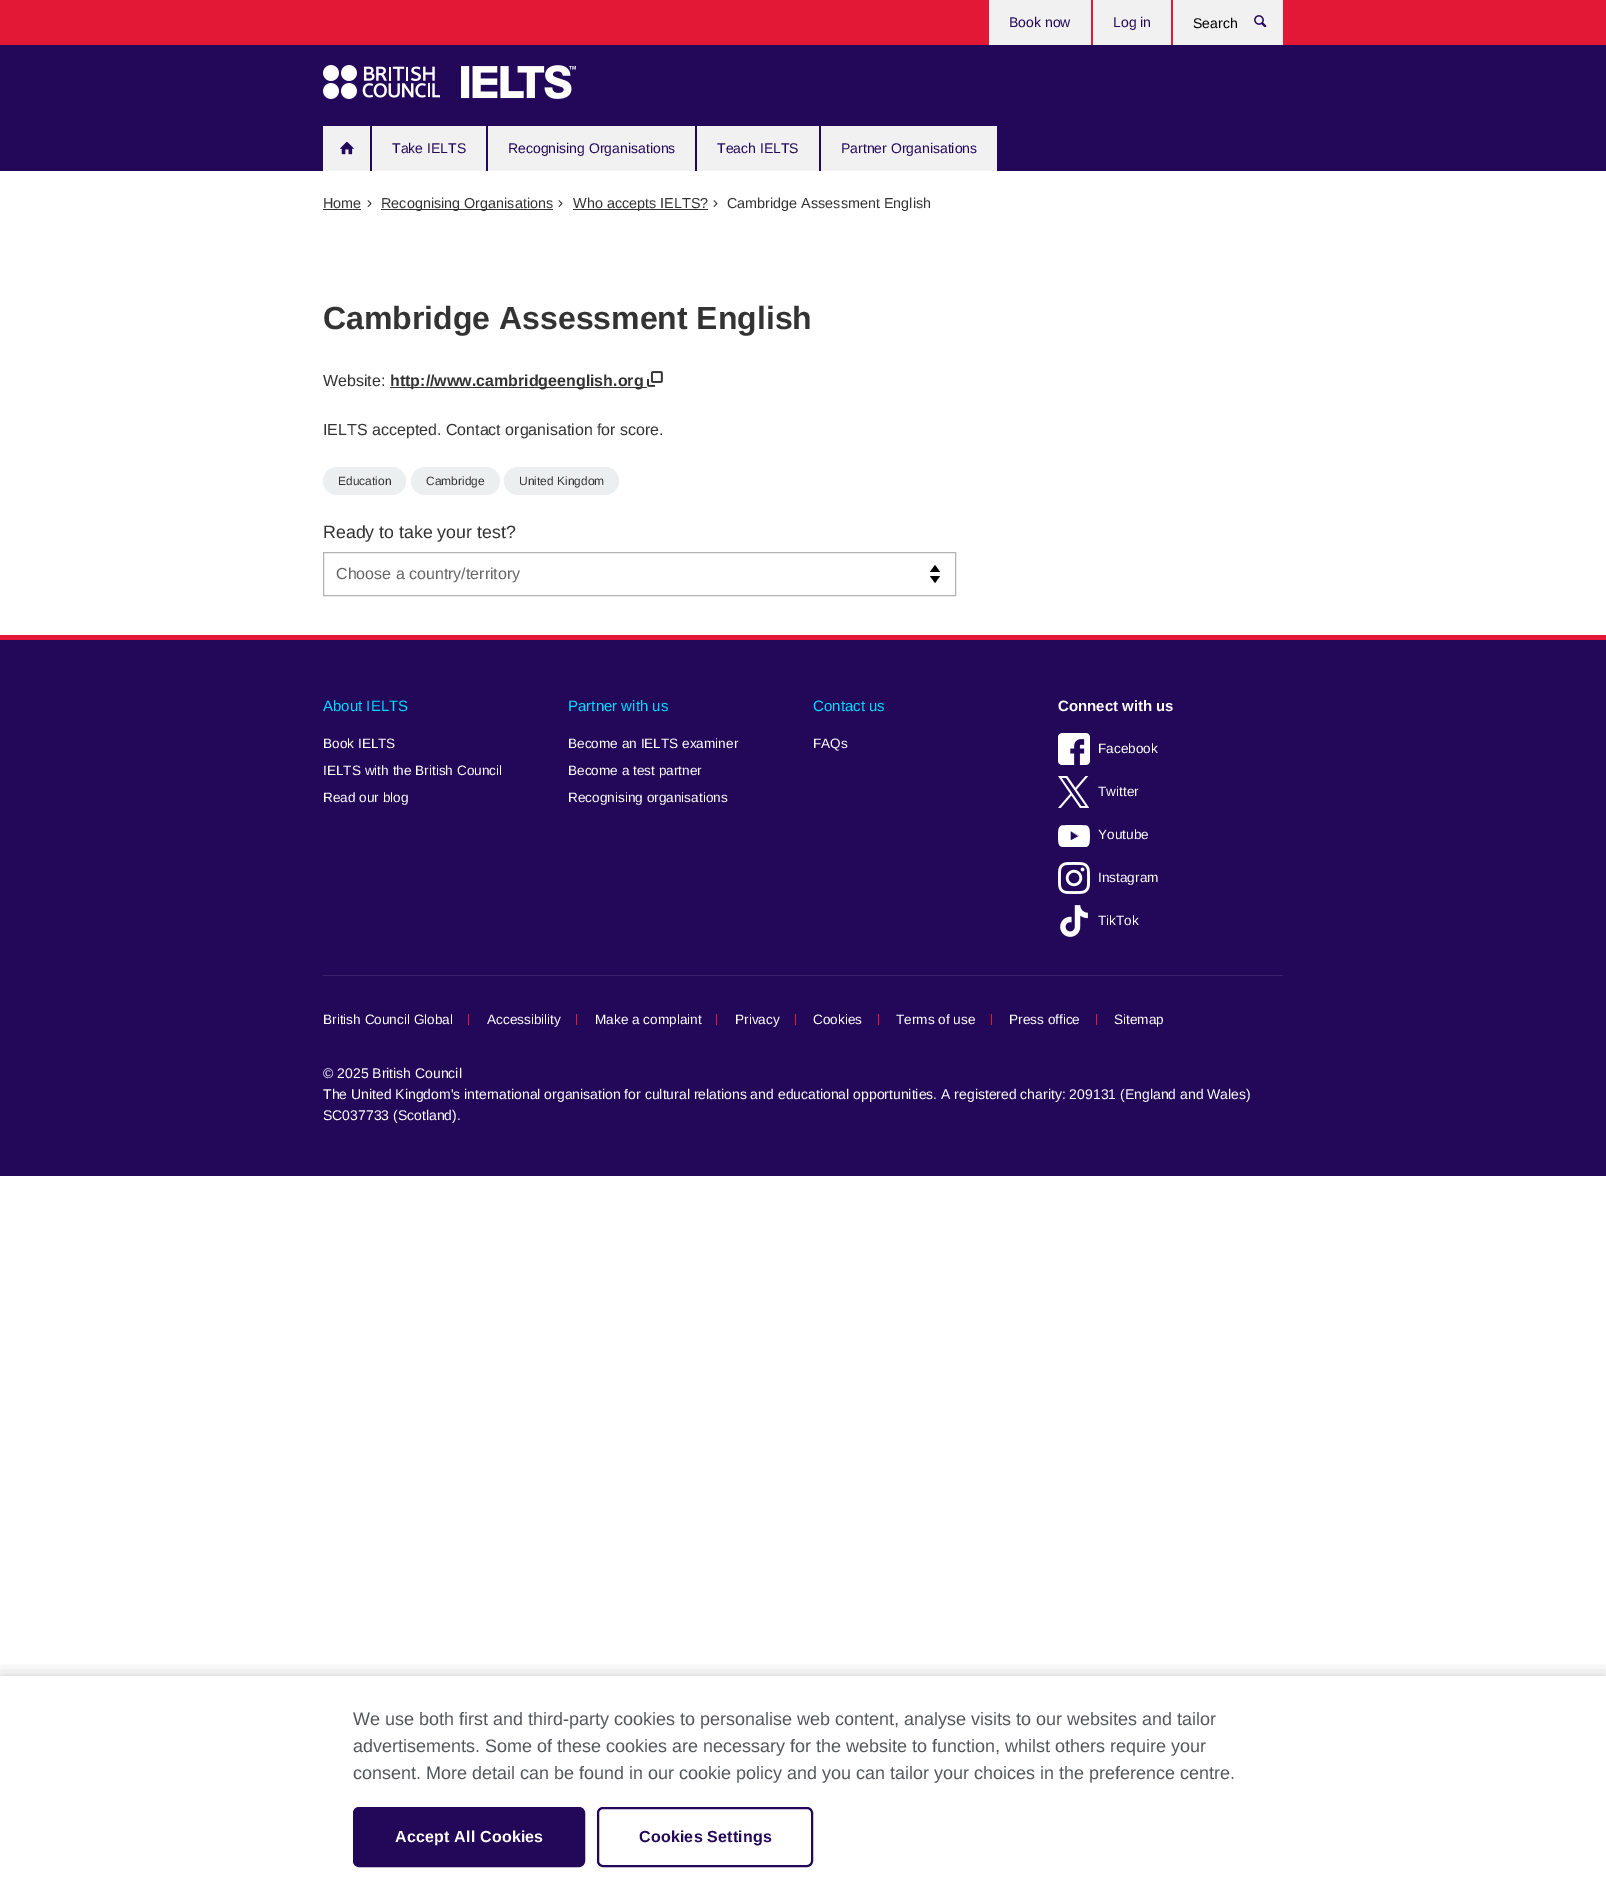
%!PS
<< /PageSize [1606 1901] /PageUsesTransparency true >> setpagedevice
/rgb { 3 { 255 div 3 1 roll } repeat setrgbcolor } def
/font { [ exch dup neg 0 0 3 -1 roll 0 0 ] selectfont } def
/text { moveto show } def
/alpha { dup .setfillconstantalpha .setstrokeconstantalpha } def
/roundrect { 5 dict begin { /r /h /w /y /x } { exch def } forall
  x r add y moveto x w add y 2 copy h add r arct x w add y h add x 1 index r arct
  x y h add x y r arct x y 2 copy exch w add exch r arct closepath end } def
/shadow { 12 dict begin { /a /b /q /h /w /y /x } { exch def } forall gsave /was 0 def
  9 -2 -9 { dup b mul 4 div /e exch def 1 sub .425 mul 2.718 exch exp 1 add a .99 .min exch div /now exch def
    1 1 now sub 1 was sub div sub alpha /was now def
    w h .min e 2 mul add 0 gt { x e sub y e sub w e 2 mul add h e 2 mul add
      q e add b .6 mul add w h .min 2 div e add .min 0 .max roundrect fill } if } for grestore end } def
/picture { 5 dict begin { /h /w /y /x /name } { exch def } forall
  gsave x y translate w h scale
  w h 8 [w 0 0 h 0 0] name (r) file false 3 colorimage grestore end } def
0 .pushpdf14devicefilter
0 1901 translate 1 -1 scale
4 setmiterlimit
255 255 255 rgb
0 0 1606 1901 rectfill
35 8 90 rgb
0 45 1606 126 rectfill
227 24 54 rgb
0 0 1606 45 rectfill
241 241 241 rgb
989 0 102 45 rectfill
1093 0 78 45 rectfill
1173 0 110 45 rectfill
(img_01.rgb) 1254 15 13 12 picture
323 126 47 45 rectfill
(img_02.rgb) 340 141 14 14 picture
372 126 114 45 rectfill
488 126 207 45 rectfill
697 126 122 45 rectfill
821 126 176 45 rectfill
(img_03.rgb) 323 65 117 34 picture
(img_04.rgb) 461 65 115 34 picture
51 51 51 rgb
323 209 38 1 rectfill
(img_05.rgb) 367 200 5 7 picture
381 209 172 1 rectfill
(img_05.rgb) 558 200 5 7 picture
573 209 135 1 rectfill
(img_05.rgb) 713 200 5 7 picture
390 387 257 1 rectfill
(img_06.rgb) 647 371 16 16 picture
235 239 240 rgb
323 467 83 28 14 roundrect fill
411 467 89 28 14 roundrect fill
504 467 115 28 14 roundrect fill
0 0 0 rgb
935 565 moveto -5 7 rlineto 10 0 rlineto closepath 935 583 moveto 5 -7 rlineto -10 0 rlineto closepath fill
179 179 179 rgb
323.5 552.5 632 43 rectstroke
35 8 90 rgb
0 640 1606 536 rectfill
227 24 54 rgb
0 635 1606 5 rectfill
(img_07.rgb) 1058 733 32 32 picture
(img_08.rgb) 1058 776 31 32 picture
(img_09.rgb) 1058 825 32 22 picture
(img_10.rgb) 1058 862 32 32 picture
(img_11.rgb) 1060 905 28 32 picture
57 33 107 rgb
323 975 960 1 rectfill
227 24 54 rgb
468 1014 1 11 rectfill
576 1014 1 11 rectfill
716 1014 1 11 rectfill
795 1014 1 11 rectfill
878 1014 1 11 rectfill
991 1014 1 11 rectfill
1096 1014 1 11 rectfill
gsave
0 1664 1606 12 rectclip
0 0 0 rgb
0 1676 1606 225 0 9 0.2 shadow
grestore
35 8 90 rgb
354 1808 230 58 5 roundrect gsave fill grestore
2 setlinewidth
stroke
598 1808 214 58 5 roundrect stroke
/LiberationSans-Regular 14 font
(Book now) 1009 27 text
(Log in) 1113 27 text
0 0 0 rgb
(Search) 1193 28 text
35 8 90 rgb
(Take IELTS) 392 153 text
(Recognising Organisations) 508 153 text
(Teach IELTS) 717 153 text
(Partner Organisations) 841 153 text
/LiberationSans-Regular 14.4 font
51 51 51 rgb
(Home) 323 208 text
(Recognising Organisations) 381 208 text
(Who accepts IELTS?) 573 208 text
(Cambridge Assessment English) 727 208 text
/LiberationSans-Bold 32 font
(Cambridge Assessment English) 323 329 text
/LiberationSans-Regular 16 font
(Website:) 323 386 text
/LiberationSans-Bold 16 font
(http://www.cambridgeenglish.org) 390 386 text
/LiberationSans-Regular 16 font
(IELTS accepted. Contact organisation for score.) 323 435 text
/LiberationSans-Regular 12 font
(Education) 338 485 text
(Cambridge) 426 485 text
(United Kingdom) 519 485 text
/LiberationSans-Regular 17.75 font
(Ready to take your test?) 323 538 text
/LiberationSans-Regular 16 font
102 102 102 rgb
(Choose a country/territory) 336 579 text
/LiberationSans-Regular 15 font
0 220 255 rgb
(About IELTS) 323 711 text
/LiberationSans-Regular 13.6 font
255 255 255 rgb
(Book IELTS) 323 748 text
(IELTS with the British Council) 323 775 text
(Read our blog) 323 802 text
/LiberationSans-Regular 15 font
0 220 255 rgb
(Partner with us) 568 711 text
/LiberationSans-Regular 13.6 font
255 255 255 rgb
(Become an IELTS examiner) 568 748 text
(Become a test partner) 568 775 text
(Recognising organisations) 568 802 text
/LiberationSans-Regular 15 font
0 220 255 rgb
(Contact us) 813 711 text
/LiberationSans-Regular 13.6 font
255 255 255 rgb
(FAQs) 813 748 text
/LiberationSans-Bold 15 font
(Connect with us) 1058 711 text
/LiberationSans-Regular 13.6 font
(Facebook) 1098 753 text
(Twitter) 1098 796 text
(Youtube) 1098 839 text
(Instagram) 1098 882 text
(TikTok) 1098 925 text
(British Council Global) 323 1024 text
(Accessibility) 487 1024 text
(Make a complaint) 595 1024 text
(Privacy) 735 1024 text
(Cookies) 813 1024 text
(Terms of use) 896 1024 text
(Press office) 1009 1024 text
(Sitemap) 1114 1024 text
/LiberationSans-Regular 14 font
(© 2025 British Council) 323 1078 text
(The United Kingdom's international organisation for cultural relations and educational opportunities. A registered charity: 209131 \(England and Wales\)) 323 1099 text
(SC037733 \(Scotland\).) 323 1120 text
/LiberationSans-Regular 18 font
84 86 90 rgb
(We use both first and third-party cookies to personalise web content, analyse visits to our websites and tailor) 353 1725 text
(advertisements. Some of these cookies are necessary for the website to function, whilst others require your) 353 1752 text
(consent. More detail can be found in our cookie policy and you can tailor your choices in the preference centre.) 353 1779 text
/LiberationSans-Bold 16 font
255 255 255 rgb
395 1842 moveto 0.2 0 (Accept All Cookies) ashow
35 8 90 rgb
639 1842 moveto 0.2 0 (Cookies Settings) ashow
.poppdf14devicefilter showpage
